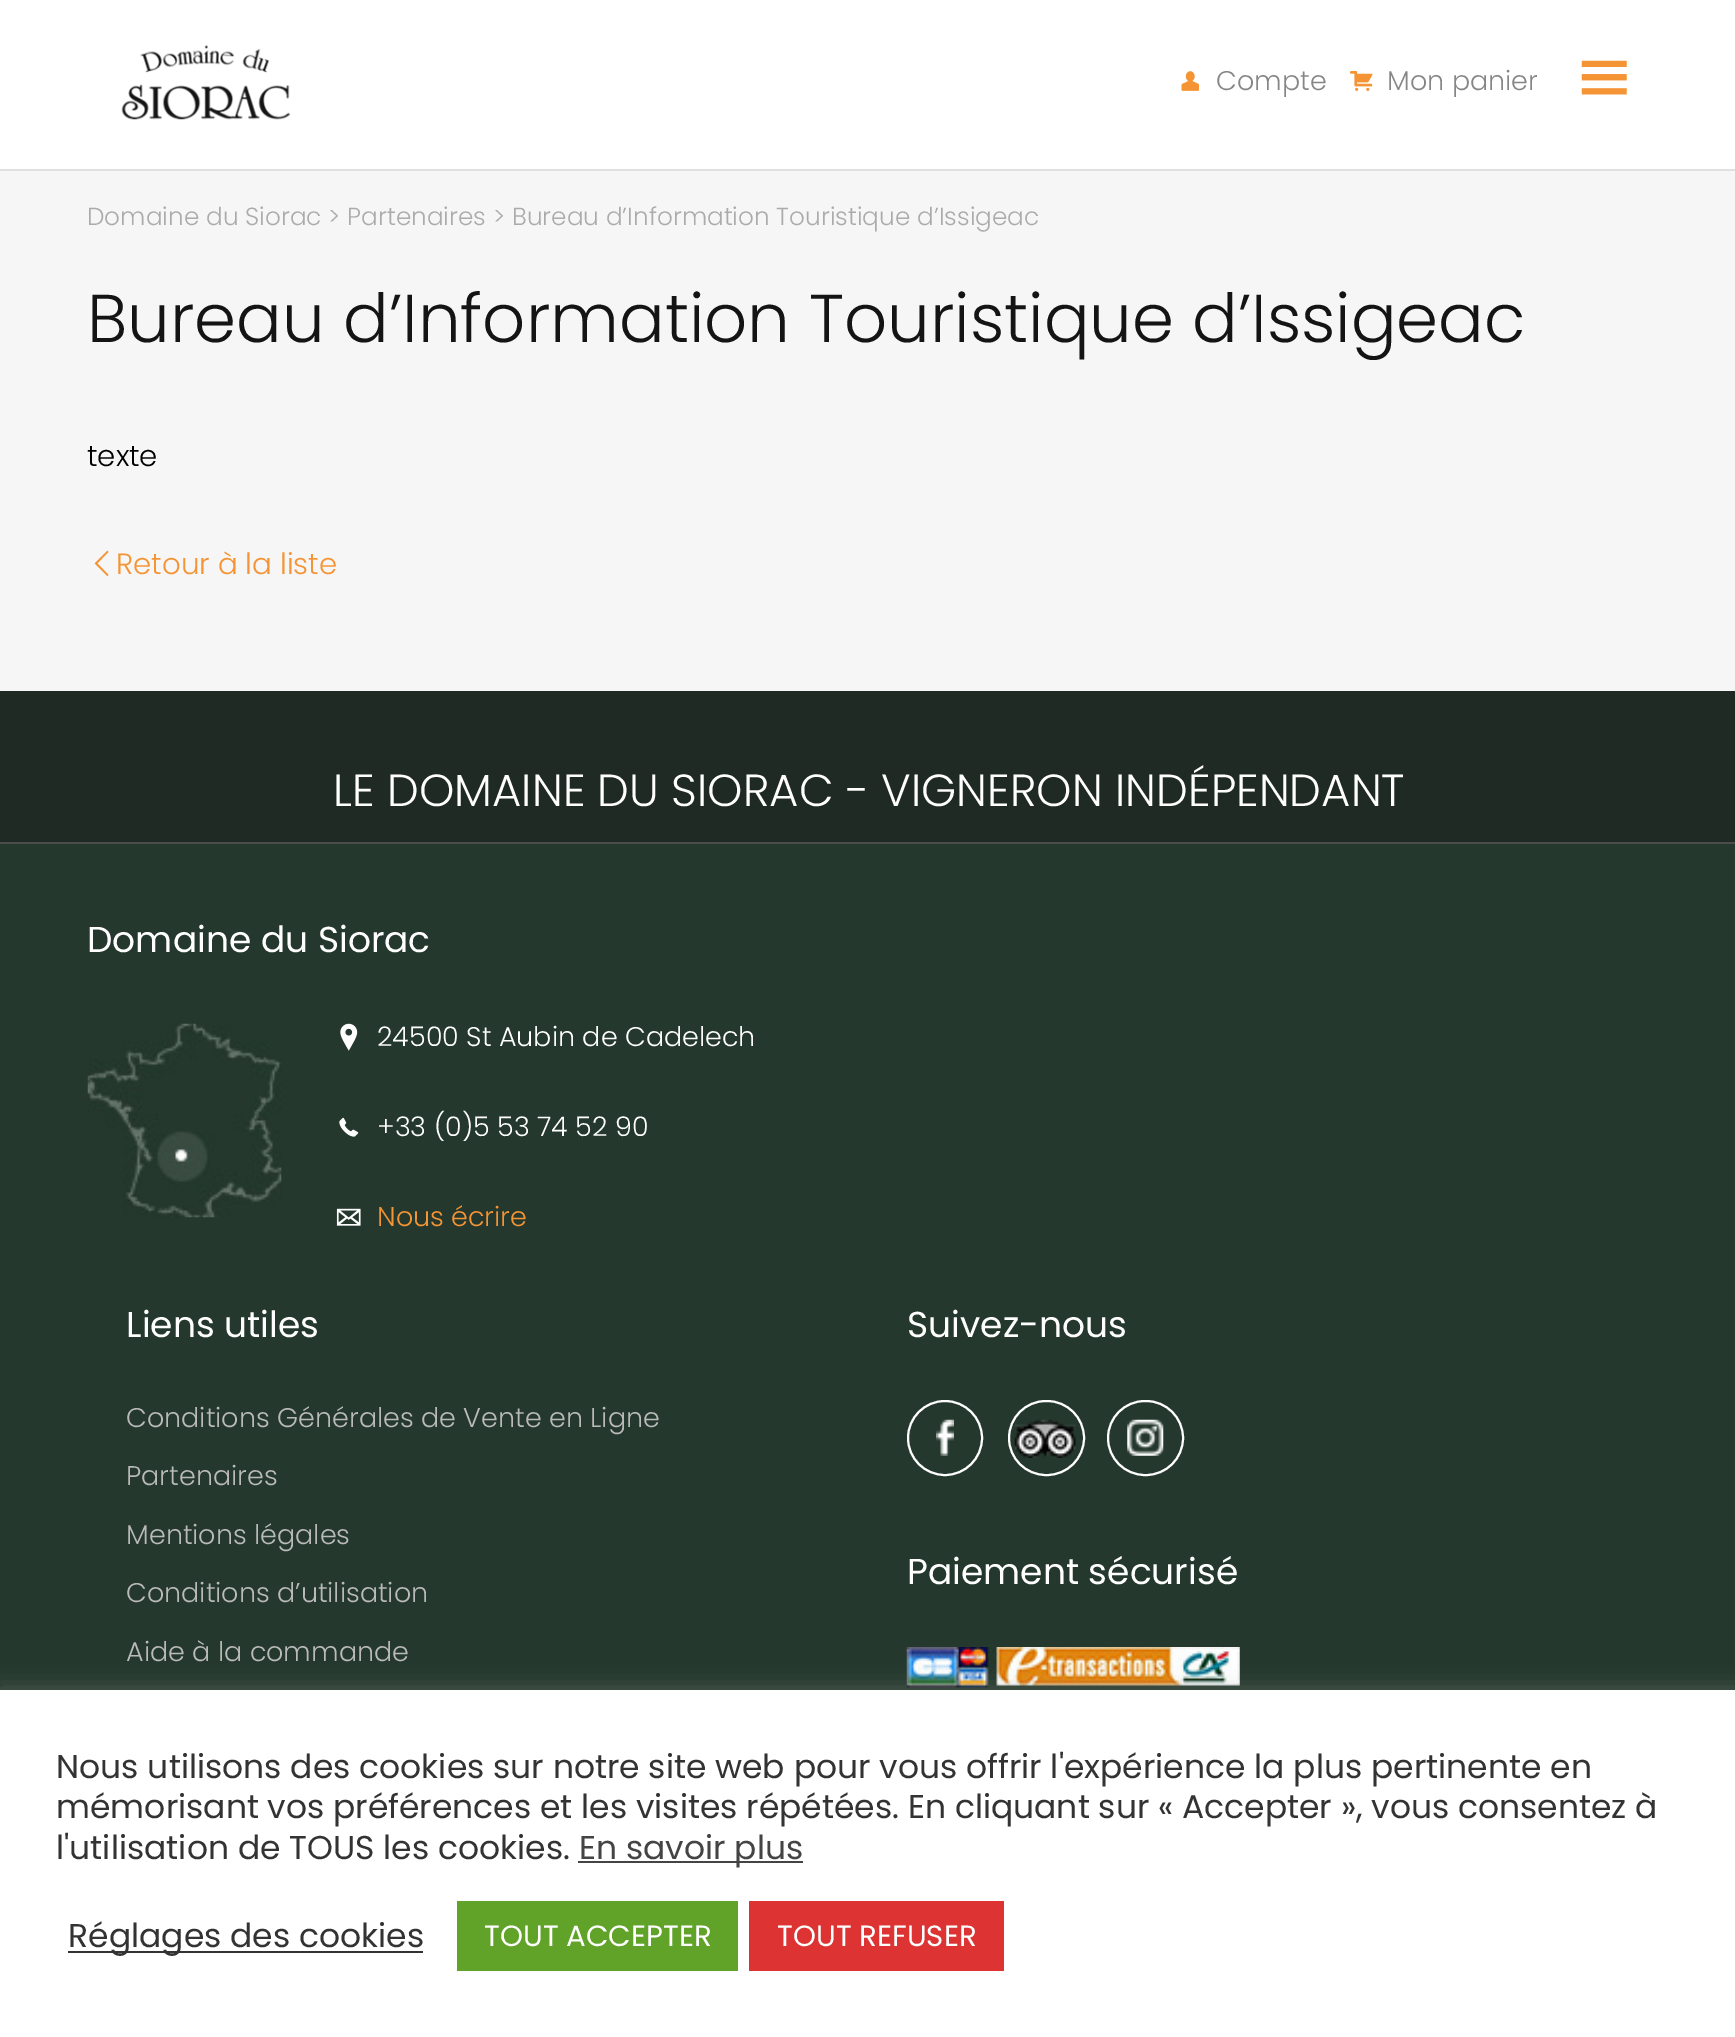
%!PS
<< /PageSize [1735 2037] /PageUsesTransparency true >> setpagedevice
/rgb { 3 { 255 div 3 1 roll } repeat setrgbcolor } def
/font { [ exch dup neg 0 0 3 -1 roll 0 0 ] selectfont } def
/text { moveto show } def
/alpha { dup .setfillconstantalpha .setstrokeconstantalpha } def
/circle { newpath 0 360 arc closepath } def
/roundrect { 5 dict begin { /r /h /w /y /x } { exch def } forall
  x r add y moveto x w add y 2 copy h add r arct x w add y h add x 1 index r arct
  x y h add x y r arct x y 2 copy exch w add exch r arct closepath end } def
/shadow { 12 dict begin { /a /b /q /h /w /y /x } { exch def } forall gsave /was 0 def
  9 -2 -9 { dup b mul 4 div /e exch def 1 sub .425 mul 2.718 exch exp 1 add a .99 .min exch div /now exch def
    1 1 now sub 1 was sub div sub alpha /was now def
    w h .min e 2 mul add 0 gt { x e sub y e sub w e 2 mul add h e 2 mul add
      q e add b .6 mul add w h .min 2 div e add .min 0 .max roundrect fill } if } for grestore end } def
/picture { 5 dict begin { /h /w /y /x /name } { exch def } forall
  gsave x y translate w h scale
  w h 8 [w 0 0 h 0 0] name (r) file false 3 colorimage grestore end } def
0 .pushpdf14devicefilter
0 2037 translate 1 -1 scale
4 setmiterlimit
246 246 246 rgb
0 0 1735 2037 rectfill
255 255 255 rgb
0 0 1735 169 rectfill
224 224 224 rgb
0 169 1735 2 rectfill
(img_01.rgb) 121 45 170 75 picture
(img_02.rgb) 1181 71 18 20 picture
(img_03.rgb) 1350 71 23 20 picture
(img_04.rgb) 1581 60 46 35 picture
31 42 36 rgb
0 691 1735 151 rectfill
76 76 76 rgb
0 842 1735 2 rectfill
36 56 45 rgb
0 844 1735 846 rectfill
(img_05.rgb) 87 1023 195 195 picture
(img_06.rgb) 340 1023 18 28 picture
(img_07.rgb) 339 1117 20 20 picture
(img_08.rgb) 336 1208 25 18 picture
(img_09.rgb) 936 1419 18 37 picture
255 255 255 rgb
2 setlinewidth
945 1438 37 circle stroke
(img_10.rgb) 1014 1419 62 39 picture
1009 1401 75 74 37 roundrect stroke
(img_11.rgb) 1127 1419 37 37 picture
1108 1401 75 74 37 roundrect stroke
(img_12.rgb) 906 1647 334 41 picture
172 171 171 rgb
0 1688 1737 348 0 11 0.3 shadow
255 255 255 rgb
0 1690 1735 347 rectfill
68 68 68 rgb
578 1861 225 2 rectfill
51 51 51 rgb
68 1951 355 2 rectfill
97 162 41 rgb
457 1901 281 70 rectfill
221 51 51 rgb
749 1901 255 70 rectfill
/Poppins-Light 27 font
134 134 134 rgb
(Compte) 1216 90 text
(Mon panier) 1387 90 text
/Poppins-Light 24.75 font
171 171 171 rgb
(Domaine du Siorac > Partenaires > Bureau d’Information Touristique d’Issigeac) 87 225 text
/Poppins-Light 67.5 font
20 20 20 rgb
(Bureau d’Information Touristique d’Issigeac) 87 342 text
/Poppins-Light 29.25 font
0 0 0 rgb
(texte) 87 466 text
/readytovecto-Regular 29.25 font
245 148 53 rgb
(7) 87 578 text
/Poppins-Light 29.25 font
(Retour à la liste) 116 574 text
/Poppins-Light 45 font
255 255 255 rgb
(LE DOMAINE DU SIORAC - VIGNERON INDÉPENDANT) 333 806 text
/Poppins-Regular 36 font
(Domaine du Siorac) 87 952 text
/Poppins-Light 27 font
(24500 St Aubin de Cadelech) 377 1046 text
(+33 \(0\)5 53 74 52 90) 377 1136 text
245 148 53 rgb
(Nous écrire) 377 1226 text
/Poppins-Regular 36 font
255 255 255 rgb
(Liens utiles) 126 1337 text
/Poppins-Light 27 font
186 186 186 rgb
(Conditions Générales de Vente en Ligne) 126 1427 text
(Partenaires) 126 1485 text
(Mentions légales) 126 1544 text
(Conditions d’utilisation) 126 1602 text
(Aide à la commande) 126 1661 text
/Poppins-Regular 36 font
255 255 255 rgb
(Suivez-nous) 907 1337 text
(Paiement sécurisé) 907 1584 text
/Poppins-Regular 33 font
51 51 51 rgb
(Nous utilisons des cookies sur notre site web pour vous offrir l'expérience la plus pertinente en) 56 1778 text
(mémorisant vos préférences et les visites répétées. En cliquant sur « Accepter », vous consentez à) 56 1818 text
(l'utilisation de TOUS les cookies.) 56 1859 text
68 68 68 rgb
(En savoir plus) 579 1859 text
51 51 51 rgb
(Réglages des cookies) 68 1947 text
/Poppins-Regular 29.25 font
255 255 255 rgb
(TOUT ACCEPTER) 484 1946 text
(TOUT REFUSER) 777 1946 text
.poppdf14devicefilter showpage
